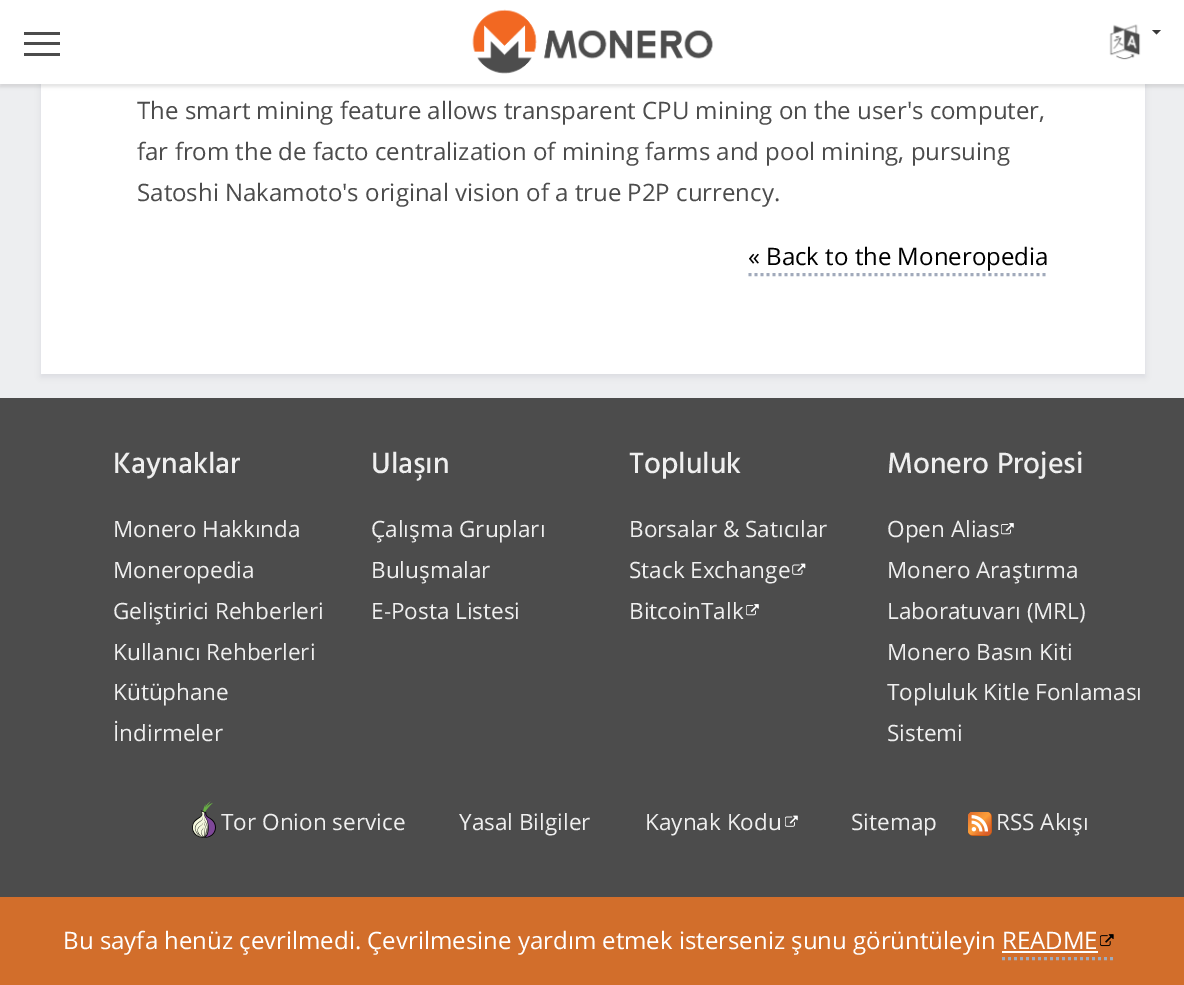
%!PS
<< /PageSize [1184 985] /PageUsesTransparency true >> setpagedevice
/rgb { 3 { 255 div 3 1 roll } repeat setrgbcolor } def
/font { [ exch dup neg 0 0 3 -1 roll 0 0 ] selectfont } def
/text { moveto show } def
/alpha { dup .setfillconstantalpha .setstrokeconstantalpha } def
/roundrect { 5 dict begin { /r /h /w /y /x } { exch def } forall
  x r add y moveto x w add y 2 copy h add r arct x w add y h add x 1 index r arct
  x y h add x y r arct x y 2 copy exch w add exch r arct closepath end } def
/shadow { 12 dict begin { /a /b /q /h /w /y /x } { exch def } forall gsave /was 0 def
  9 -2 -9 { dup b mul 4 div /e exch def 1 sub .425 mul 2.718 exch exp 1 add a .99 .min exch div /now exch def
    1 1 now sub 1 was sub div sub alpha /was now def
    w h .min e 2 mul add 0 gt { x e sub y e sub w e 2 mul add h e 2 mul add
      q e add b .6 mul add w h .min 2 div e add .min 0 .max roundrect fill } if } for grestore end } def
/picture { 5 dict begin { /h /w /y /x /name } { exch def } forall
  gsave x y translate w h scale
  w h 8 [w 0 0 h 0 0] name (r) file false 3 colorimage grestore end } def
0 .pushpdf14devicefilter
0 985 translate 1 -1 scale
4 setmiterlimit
237 238 240 rgb
0 0 1184 985 rectfill
50 50 93 rgb
41 -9 1104 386 0 3 0.1 shadow
255 255 255 rgb
41 84 1104 290 rectfill
0 0 0 rgb
0 3 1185 84 0 1.5 0.1 shadow
255 255 255 rgb
0 0 1184 84 rectfill
(img_01.rgb) 472 9 241 65 picture
(img_02.rgb) 1109 24 32 36 picture
57 57 57 rgb
1152 30 moveto 9 0 rlineto -4.5 4.5 rlineto closepath fill
76 76 76 rgb
24 53 36 3 rectfill
24 32 36 3 rectfill
24 42 36 3 rectfill
210 110 43 rgb
0 897 1184 88 rectfill
(img_03.rgb) 1100 934 14 13 picture
255 255 255 rgb
1002 951 96 2 rectfill
161 170 187 rgb
3 setlinewidth
[3 3] 0 setdash
1002 958.5 moveto 112.5 0 rlineto stroke
748.5 274.5 moveto 300 0 rlineto stroke
76 76 76 rgb
0 398 1184 499 rectfill
(img_04.rgb) 792 563 14 12 picture
(img_05.rgb) 746 604 13 12 picture
(img_05.rgb) 1001 523 13 12 picture
(img_06.rgb) 192 801 24 37 picture
(img_07.rgb) 785 815 13 12 picture
(img_08.rgb) 968 812 24 24 picture
/OpenSans-Regular 24 font
(The smart mining feature allows transparent CPU mining on the user's computer,) 137 119 text
(far from the de facto centralization of mining farms and pool mining, pursuing) 137 160 text
(Satoshi Nakamoto's original vision of a true P2P currency.) 137 201 text
255 255 255 rgb
(Bu sayfa henüz çevrilmedi. Çevrilmesine yardım etmek isterseniz şunu görüntüleyin README) 63 949 text
0 0 0 rgb
(« Back to the Moneropedia) 748 265 text
/Hind-Medium 30 font
239 239 239 rgb
(Kaynaklar) 113 473 text
/OpenSans-Regular 22.5 font
(Monero Hakkında) 113 537 text
(Moneropedia) 113 578 text
(Geliştirici Rehberleri) 113 619 text
(Kullanıcı Rehberleri) 113 660 text
(Kütüphane) 113 700 text
(İndirmeler) 113 741 text
/Hind-Medium 30 font
(Ulaşın) 371 473 text
/OpenSans-Regular 22.5 font
(Çalışma Grupları) 371 537 text
(Buluşmalar) 371 578 text
(E-Posta Listesi) 371 619 text
/Hind-Medium 30 font
(Topluluk) 629 473 text
/OpenSans-Regular 22.5 font
(Borsalar & Satıcılar) 629 537 text
(Stack Exchange) 629 578 text
(BitcoinTalk) 629 619 text
/Hind-Medium 30 font
(Monero Projesi) 887 473 text
/OpenSans-Regular 22.5 font
(Open Alias) 887 537 text
(Monero Araştırma) 887 578 text
(Laboratuvarı \(MRL\)) 887 619 text
(Monero Basın Kiti) 887 660 text
(Topluluk Kitle Fonlaması) 887 700 text
(Sistemi) 887 741 text
(Tor Onion service) 221 830 text
(Yasal Bilgiler) 459 830 text
(Kaynak Kodu) 645 830 text
(Sitemap) 851 830 text
(RSS Akışı) 996 830 text
.poppdf14devicefilter showpage
